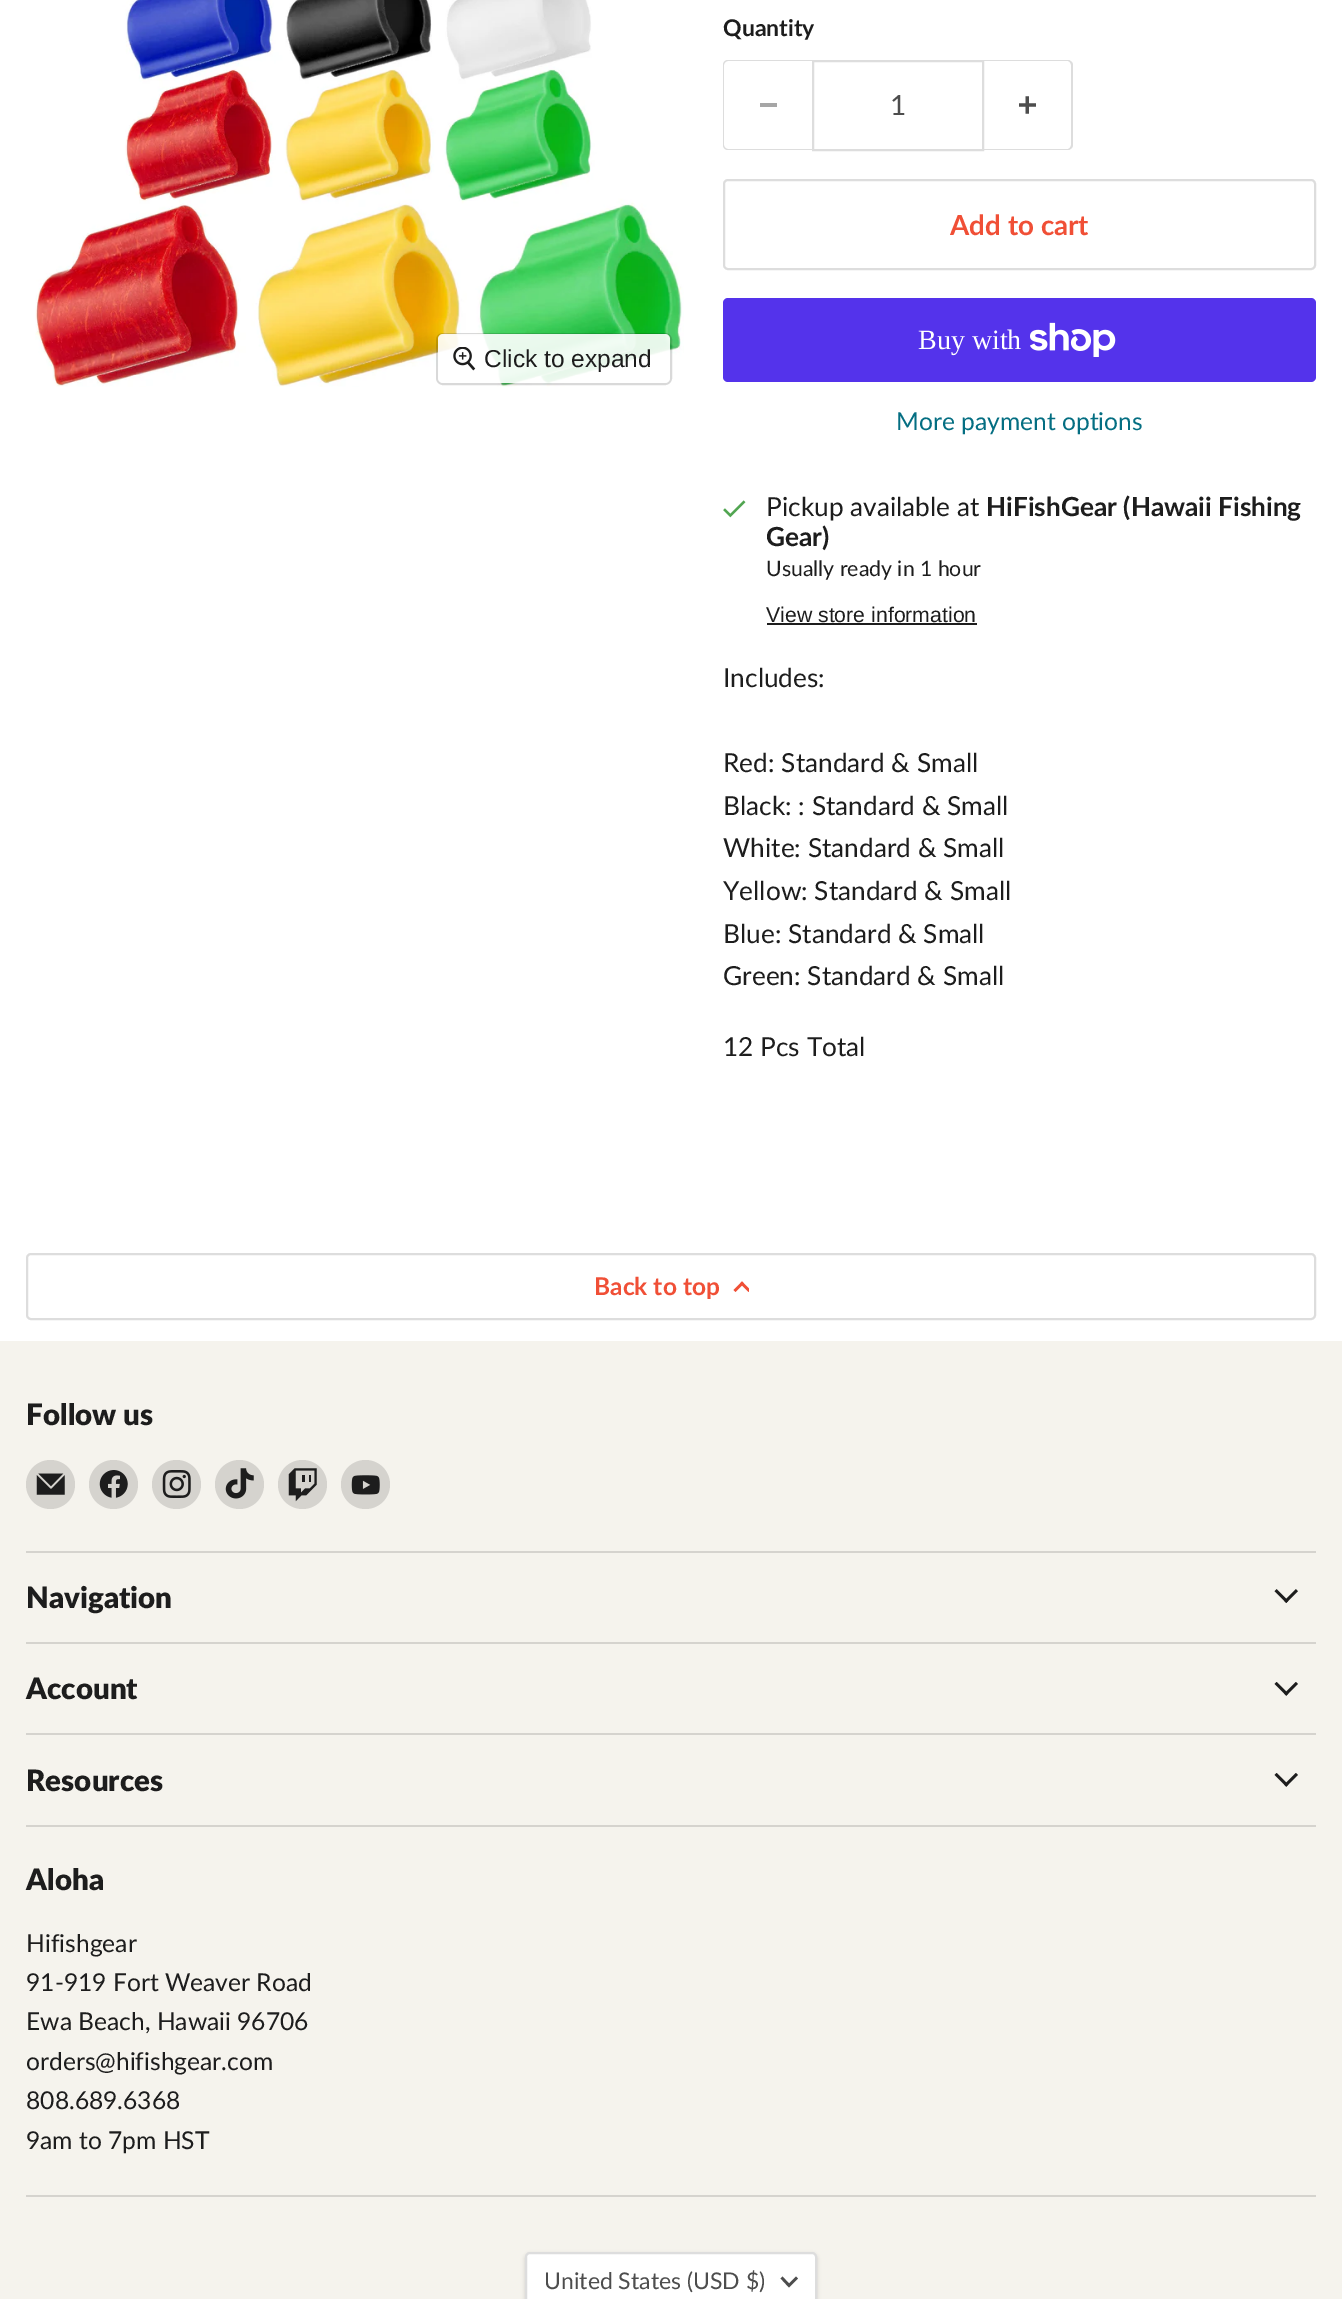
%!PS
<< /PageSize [1342 2299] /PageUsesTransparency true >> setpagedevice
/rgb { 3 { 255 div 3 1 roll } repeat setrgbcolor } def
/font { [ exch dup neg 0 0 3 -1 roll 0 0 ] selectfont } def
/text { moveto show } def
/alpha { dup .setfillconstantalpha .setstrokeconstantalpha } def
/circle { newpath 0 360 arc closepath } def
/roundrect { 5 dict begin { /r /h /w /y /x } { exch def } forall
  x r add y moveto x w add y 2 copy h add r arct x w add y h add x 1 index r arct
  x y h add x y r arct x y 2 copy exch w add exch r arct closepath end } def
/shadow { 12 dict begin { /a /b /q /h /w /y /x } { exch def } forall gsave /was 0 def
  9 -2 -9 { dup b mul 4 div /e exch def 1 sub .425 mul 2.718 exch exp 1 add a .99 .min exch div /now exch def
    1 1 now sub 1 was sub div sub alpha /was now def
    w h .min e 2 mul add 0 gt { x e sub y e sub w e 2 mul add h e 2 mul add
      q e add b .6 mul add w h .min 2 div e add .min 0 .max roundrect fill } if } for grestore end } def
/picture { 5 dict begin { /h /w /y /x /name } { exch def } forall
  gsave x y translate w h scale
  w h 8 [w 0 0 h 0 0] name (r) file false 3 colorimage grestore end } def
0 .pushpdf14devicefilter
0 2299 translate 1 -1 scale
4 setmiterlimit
255 255 255 rgb
0 0 1342 2299 rectfill
(img_01.rgb) 35 0 649 387 picture
0.15 alpha
0 0 0 rgb
2 setlinewidth
437 334 234 50 6 roundrect stroke
0.9 alpha
255 255 255 rgb
438 334 232 49 5 roundrect fill
1 alpha
(img_02.rgb) 453 347 23 24 picture
221 221 221 rgb
728 60 moveto 84 0 rlineto 0 90 rlineto -84 0 rlineto -3 0 -5 -2 -5 -5 rcurveto 0 -80 rlineto 0 -3 2 -5 5 -5 rcurveto closepath 728 61 moveto 84 0 rlineto 0 88 rlineto -84 0 rlineto -2 0 -4 -2 -4 -4 rcurveto 0 -80 rlineto 0 -2 2 -4 4 -4 rcurveto closepath eofill
166 166 166 rgb
760 103 17 4 rectfill
221 221 221 rgb
813 61 170 89 rectstroke
984 60 moveto 84 0 rlineto 2 0 5 2 5 5 rcurveto 0 80 rlineto 0 3 -3 5 -5 5 rcurveto -84 0 rlineto closepath 984 61 moveto 84 0 rlineto 1 0 3 2 3 4 rcurveto 0 80 rlineto 0 2 -2 4 -3 4 rcurveto -84 0 rlineto closepath eofill
(img_03.rgb) 1019 96 17 18 picture
724 180 591 89 4 roundrect stroke
84 51 235 rgb
723 298 593 84 5 roundrect fill
(img_04.rgb) 1030 322 86 35 picture
(img_05.rgb) 723 500 23 18 picture
29 29 29 rgb
767 623 210 2 rectfill
221 221 221 rgb
27 1254 1288 65 4 roundrect stroke
240 79 54 rgb
2.7 setlinewidth
2 setlinecap
742 1283.5 moveto -6.5 6.5 rlineto stroke
gsave
732 1279 17 14 rectclip
742 1283.5 moveto 6.5 6.5 rlineto stroke
grestore
245 243 237 rgb
0 1341 1342 958 rectfill
213 211 206 rgb
26 1551 1290 2 rectfill
50.5 1484.5 24.5 circle fill
(img_06.rgb) 36 1473 29 22 picture
113.5 1484.5 24.5 circle fill
(img_07.rgb) 99 1470 29 28 picture
176.5 1484.5 24.5 circle fill
(img_08.rgb) 162 1470 29 28 picture
239.5 1484.5 24.5 circle fill
(img_09.rgb) 225 1468 29 31 picture
302.5 1484.5 24.5 circle fill
(img_10.rgb) 288 1468 29 34 picture
365.5 1484.5 24.5 circle fill
(img_11.rgb) 351 1475 29 20 picture
26 1642 1290 2 rectfill
(img_12.rgb) 1274 1589 24 14 picture
26 1733 1290 2 rectfill
(img_13.rgb) 1274 1682 24 14 picture
26 1825 1290 2 rectfill
(img_13.rgb) 1274 1773 24 14 picture
26 2195 1290 2 rectfill
0 0 0 rgb
525 2254 292 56 5 2 0.15 shadow
255 255 255 rgb
526 2253 290 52 4 roundrect gsave fill grestore
221 221 221 rgb
2 setlinewidth
0 setlinecap
stroke
77 77 77 rgb
2.7 setlinewidth
2 setlinecap
789 2285.5 moveto 7 -7 rlineto 789 2285.5 moveto -6.5 -7 rlineto stroke
/LiberationSans-Regular 24.5 font
29 29 29 rgb
(Click to expand) 484 367 text
/Lato-Bold 23 font
(Quantity) 723 36 text
/Lato-Regular 27.75 font
77 77 77 rgb
(1) 890 115 text
/Lato-Bold 27.75 font
240 79 54 rgb
(Add to cart) 950 235 text
/LiberationSerif-Regular 28 font
255 255 255 rgb
(Buy with) 918 349 text
/Lato-Regular 24.6 font
4 110 130 rgb
(More payment options) 896 430 text
/Lato-Regular 26.25 font
29 29 29 rgb
(Pickup available at) 766 516 text
/Lato-Bold 26.25 font
(HiFishGear \(Hawaii Fishing) 986 516 text
(Gear\)) 766 546 text
/Lato-Regular 21.25 font
(Usually ready in 1 hour) 766 576 text
/LiberationSans-Regular 21.25 font
(View store information) 766 622 text
/Lato-Regular 26.25 font
(Includes:) 723 687 text
(Red: Standard & Small) 723 772 text
(Black: : Standard & Small) 723 815 text
(White: Standard & Small) 723 857 text
(Yellow: Standard & Small) 723 900 text
(Blue: Standard & Small) 723 943 text
(Green: Standard & Small) 723 985 text
(12 Pcs Total) 723 1056 text
/Lato-Bold 24.5 font
240 79 54 rgb
(Back to top) 594 1295 text
/Lato-ExtraBold 29.5 font
29 29 29 rgb
(Follow us) 26 1425 text
(Navigation) 26 1608 text
(Account) 26 1699 text
(Resources) 26 1791 text
(Aloha) 26 1890 text
/Lato-Regular 24.6 font
(Hifishgear) 26 1952 text
(91-919 Fort Weaver Road) 26 1991 text
(Ewa Beach, Hawaii 96706) 26 2030 text
(orders@hifishgear.com) 26 2070 text
(808.689.6368) 26 2109 text
(9am to 7pm HST) 26 2149 text
/Lato-Regular 23 font
77 77 77 rgb
(United States \(USD $\)) 544 2289 text
.poppdf14devicefilter showpage
